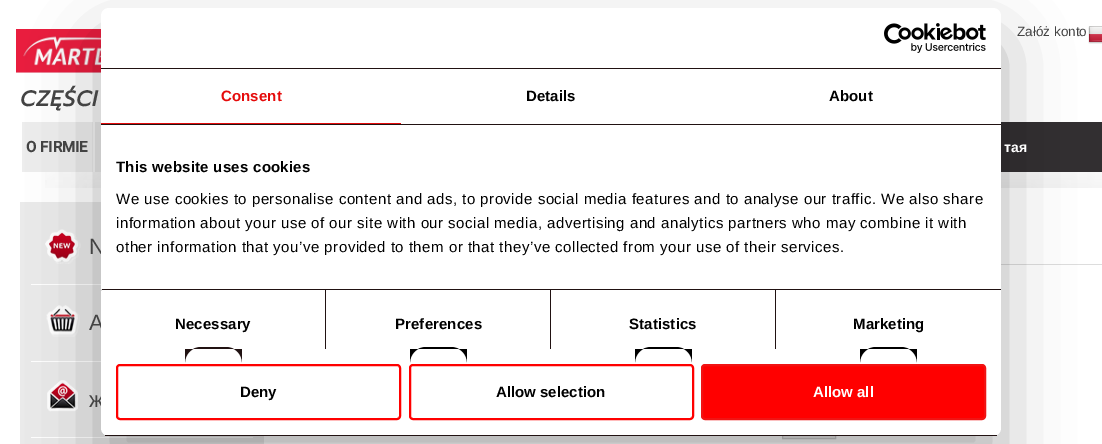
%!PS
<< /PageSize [1102 444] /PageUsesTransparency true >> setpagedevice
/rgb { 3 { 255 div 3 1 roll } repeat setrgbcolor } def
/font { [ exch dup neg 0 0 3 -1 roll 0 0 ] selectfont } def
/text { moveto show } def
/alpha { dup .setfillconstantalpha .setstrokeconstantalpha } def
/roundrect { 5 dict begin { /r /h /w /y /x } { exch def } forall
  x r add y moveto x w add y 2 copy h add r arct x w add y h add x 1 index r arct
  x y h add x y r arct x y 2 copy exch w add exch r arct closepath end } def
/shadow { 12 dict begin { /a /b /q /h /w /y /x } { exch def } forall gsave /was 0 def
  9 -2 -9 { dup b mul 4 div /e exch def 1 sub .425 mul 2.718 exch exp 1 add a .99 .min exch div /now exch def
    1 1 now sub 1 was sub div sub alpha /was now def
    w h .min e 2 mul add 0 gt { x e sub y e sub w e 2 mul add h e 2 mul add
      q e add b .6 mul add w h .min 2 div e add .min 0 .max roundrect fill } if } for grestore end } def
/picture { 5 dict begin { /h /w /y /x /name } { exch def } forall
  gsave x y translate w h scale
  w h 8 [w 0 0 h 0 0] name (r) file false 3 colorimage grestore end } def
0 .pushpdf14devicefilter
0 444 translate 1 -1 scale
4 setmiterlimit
255 255 255 rgb
0 0 1102 444 rectfill
(img_01.rgb) 45 172 1057 16 picture
(img_02.rgb) 16 29 85 44 picture
(img_03.rgb) 1088 26 14 18 picture
237 237 237 rgb
22 122 71 50 rectfill
95 122 6 50 rectfill
50 47 49 rgb
1001 122 101 50 rectfill
234 234 234 rgb
20 202 244 242 rectfill
(img_04.rgb) 45 229 36 35 picture
(img_05.rgb) 46 305 34 32 picture
255 255 255 rgb
31 284 70 1 rectfill
(img_06.rgb) 47 380 31 32 picture
31 361 70 1 rectfill
31 437 222 1 rectfill
221 221 221 rgb
1001 264 101 1 rectfill
gsave 783 436 moveto 52 0 rlineto 0 2 rlineto -52 0 rlineto closepath clip newpath
<< /ShadingType 2 /ColorSpace /DeviceRGB /Coords [809 418 809 438] /Extend [true true] /Function << /FunctionType 2 /Domain [0 1] /C0 [0.969 0.969 0.969] /C1 [0.918 0.918 0.918] /N 1 >> >> shfill grestore
204 204 204 rgb
782.5 417.5 53 21 rectstroke
0 0 0 rgb
101 40 900 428 8 34 0.3 shadow
/LiberationSans-Regular 13.5 font
67 67 67 rgb
(Załóż konto) 1017 36 text
/Prompt-BoldItalic 21.5 font
20 106 moveto 0.75 0 (CZĘŚCI) ashow
/Roboto-Bold 15 font
(O FIRMIE) 26 152 text
/LiberationSans-Bold 14 font
255 255 255 rgb
(тая) 1004 152 text
/LiberationSans-Regular 22 font
67 67 67 rgb
(N) 89 254 text
(A) 89 330 text
(ж) 89 407 text
255 255 255 rgb
101 8 900 428 8 roundrect fill
33 18 18 rgb
101 68 900 1 rectfill
(img_07.rgb) 884 23 102 30 picture
101 124 900 1 rectfill
229 11 11 rgb
101 123 300 1 rectfill
/LiberationSans-Bold 15 font
221 101 moveto 0.1 0 (Consent) ashow
0 0 0 rgb
526 101 moveto 0.1 0 (Details) ashow
829 101 moveto 0.1 0 (About) ashow
33 18 18 rgb
101 289 900 1 rectfill
0 0 0 rgb
116 172 moveto 0.25 0 (This website uses cookies) ashow
/LiberationSans-Regular 15 font
116 204 moveto 0.5 0 (We use cookies to personalise content and ads, to provide social media features and to analyse our traffic. We also share) ashow
116 228 moveto 0.5 0 (information about your use of our site with our social media, advertising and analytics partners who may combine it with) ashow
116 252 moveto 0.5 0 (other information that you’ve provided to them or that they’ve collected from your use of their services.) ashow
221 221 221 rgb
101 289 1 2 rectfill
33 18 18 rgb
325 290 1 59 rectfill
/LiberationSans-Bold 15 font
0 0 0 rgb
175 329 moveto 0.1 0 (Necessary) ashow
33 18 18 rgb
201 347 moveto 25 0 rlineto 9 0 16 7 16 16 rcurveto 0 -14 rlineto -57 0 rlineto 0 14 rlineto 0 -9 7 -16 16 -16 rcurveto closepath fill
550 290 1 59 rectfill
0 0 0 rgb
395 329 moveto 0.1 0 (Preferences) ashow
426 347 moveto 25 0 rlineto 9 0 16 7 16 16 rcurveto 0 -14 rlineto -57 0 rlineto 0 14 rlineto 0 -9 7 -16 16 -16 rcurveto closepath fill
33 18 18 rgb
775 290 1 59 rectfill
0 0 0 rgb
629 329 moveto 0.1 0 (Statistics) ashow
651 347 moveto 25 0 rlineto 9 0 16 7 16 16 rcurveto 0 -14 rlineto -57 0 rlineto 0 14 rlineto 0 -9 7 -16 16 -16 rcurveto closepath fill
853 329 moveto 0.1 0 (Marketing) ashow
876 347 moveto 25 0 rlineto 9 0 16 7 16 16 rcurveto 0 -14 rlineto -57 0 rlineto 0 14 rlineto 0 -9 7 -16 16 -16 rcurveto closepath fill
gsave
101 8 900 428 8 roundrect clip newpath
33 18 18 rgb
101 435 900 1 rectfill
grestore
255 0 0 rgb
2 setlinewidth
117 365 283 54 3 roundrect stroke
0 0 0 rgb
(Deny) 240 397 text
255 0 0 rgb
410 365 283 54 3 roundrect stroke
0 0 0 rgb
(Allow selection) 496 397 text
255 0 0 rgb
702 365 283 54 3 roundrect gsave fill grestore
241 19 19 rgb
stroke
255 255 255 rgb
(Allow all) 813 397 text
.poppdf14devicefilter showpage
